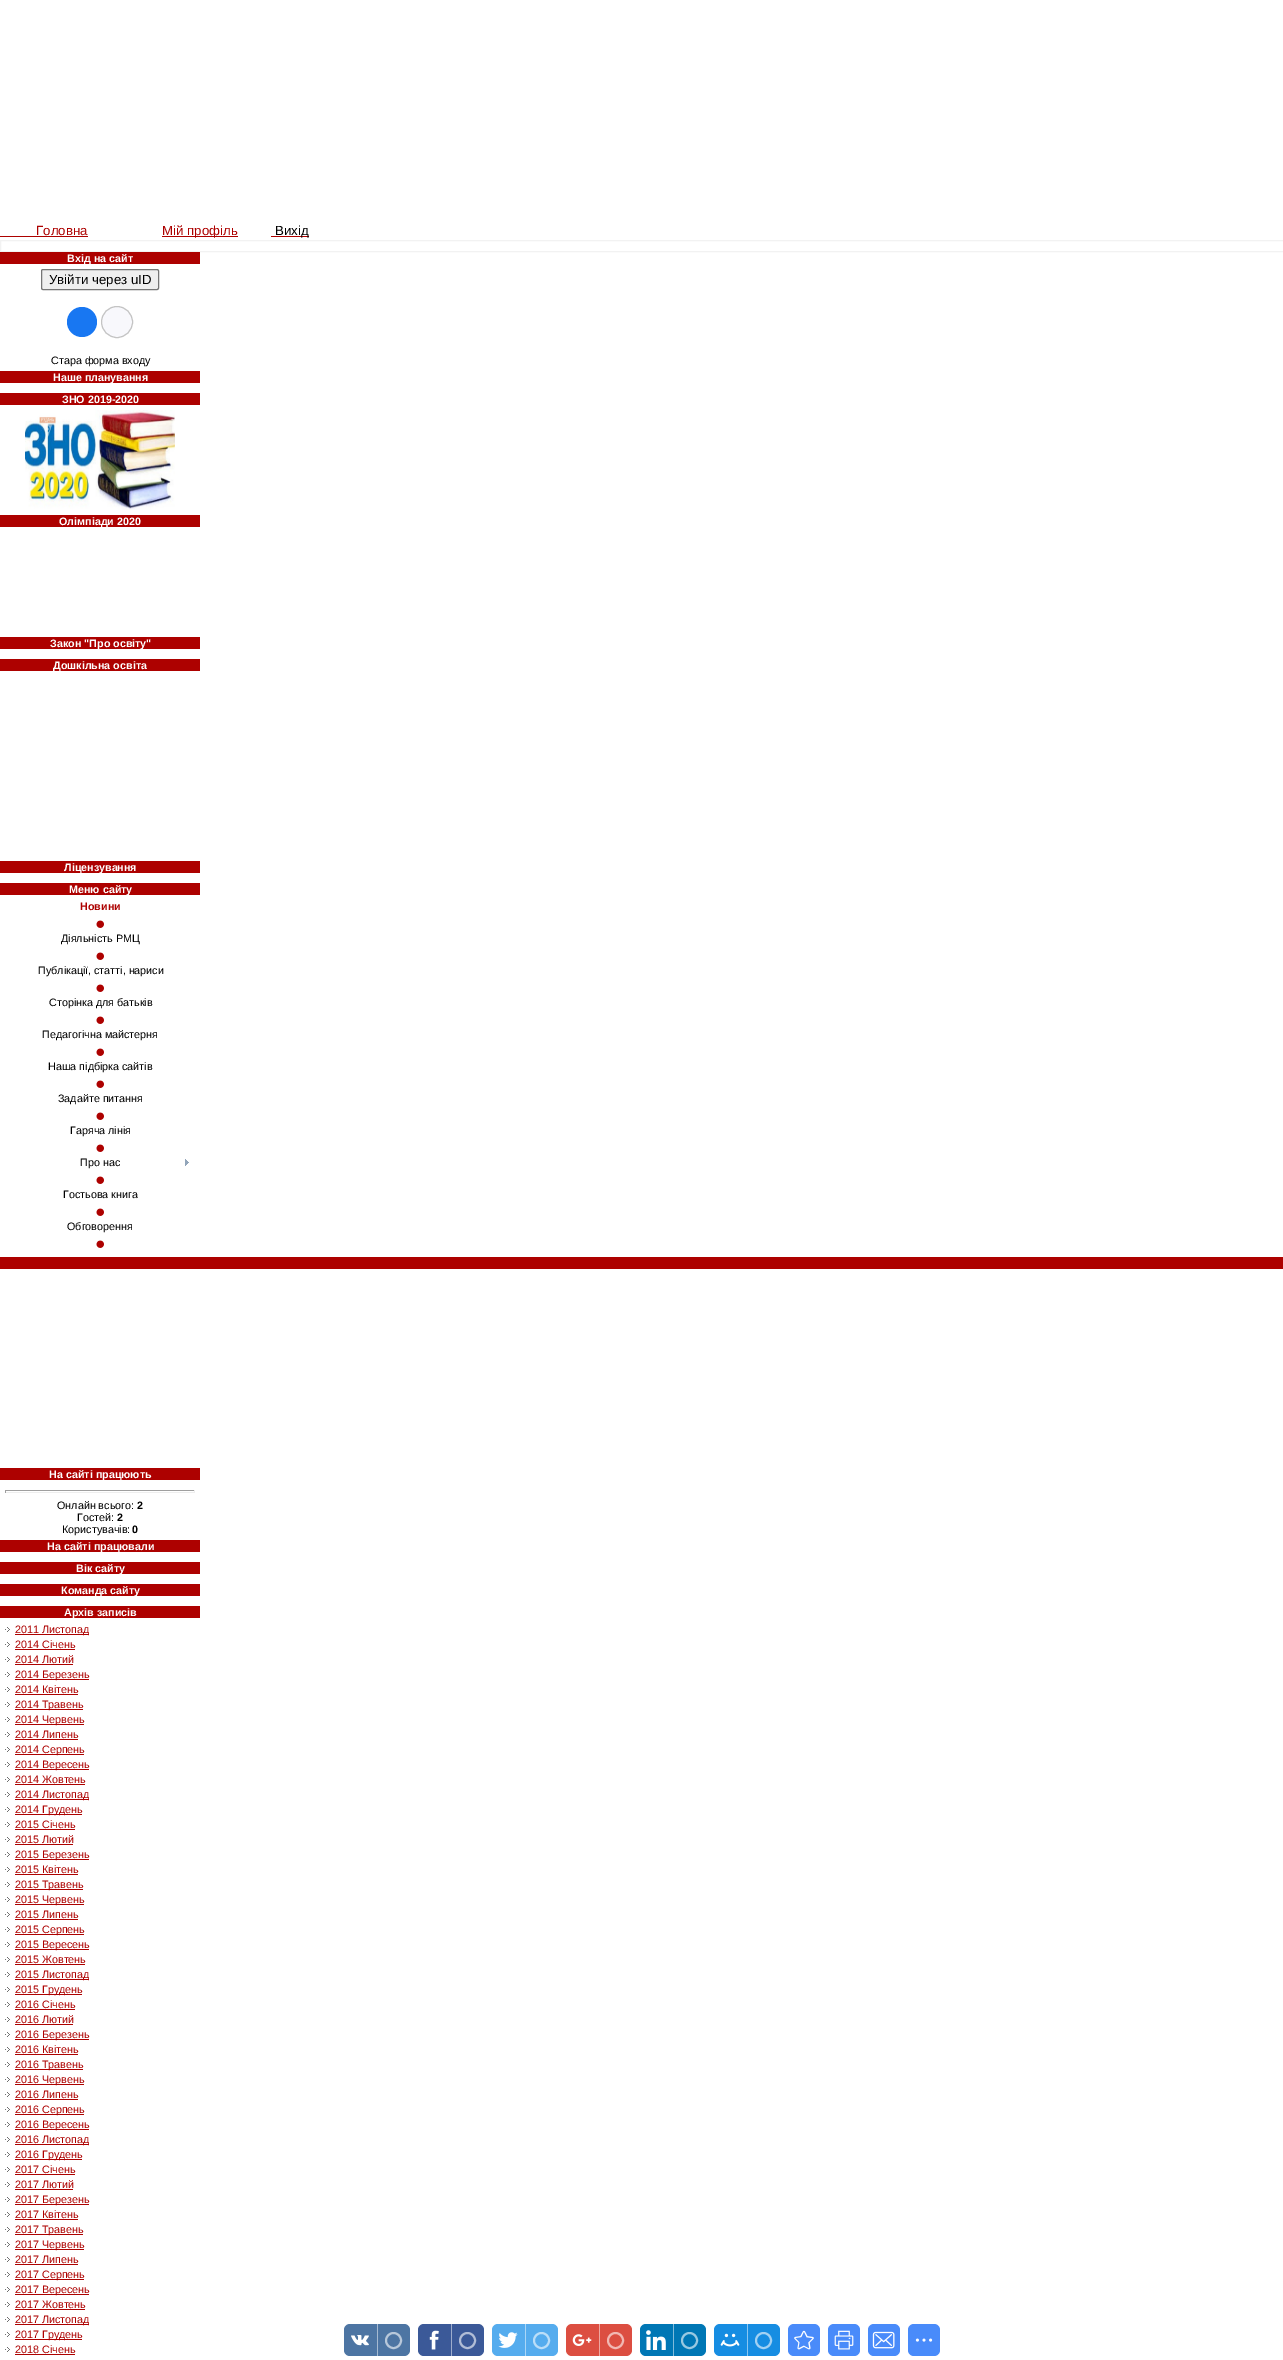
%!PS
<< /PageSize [1283 2360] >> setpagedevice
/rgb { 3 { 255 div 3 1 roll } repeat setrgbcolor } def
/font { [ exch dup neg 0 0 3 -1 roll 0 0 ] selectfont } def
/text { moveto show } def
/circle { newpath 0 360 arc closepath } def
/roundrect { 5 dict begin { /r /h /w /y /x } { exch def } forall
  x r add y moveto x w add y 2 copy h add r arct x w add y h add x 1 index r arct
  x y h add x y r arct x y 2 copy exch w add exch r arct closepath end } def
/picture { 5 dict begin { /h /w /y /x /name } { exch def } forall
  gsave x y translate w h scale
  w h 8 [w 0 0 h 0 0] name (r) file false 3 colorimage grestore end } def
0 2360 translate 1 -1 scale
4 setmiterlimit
255 255 255 rgb
0 0 1283 2360 rectfill
173 1 0 rgb
0 236 88 1 rectfill
162 236 76 1 rectfill
271 236 38 1 rectfill
242 242 242 rgb
0.5 240.5 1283 11 rectstroke
173 1 0 rgb
0 252 200 12 rectfill
239 239 239 rgb
41.5 269.5 117 20 1.5 roundrect gsave fill grestore
118 118 118 rgb
stroke
24 119 242 rgb
82 322 15 circle fill
248 248 252 rgb
117 322 15.5 circle gsave fill grestore
196 196 196 rgb
stroke
173 1 0 rgb
0 371 200 12 rectfill
0 393 200 12 rectfill
(img_01.rgb) 25 410 150 100 picture
0 515 200 12 rectfill
0 637 200 12 rectfill
0 659 200 12 rectfill
0 861 200 12 rectfill
0 883 200 12 rectfill
(img_02.rgb) 96 920 8 8 picture
(img_02.rgb) 96 952 8 8 picture
(img_02.rgb) 96 984 8 8 picture
(img_02.rgb) 96 1016 8 8 picture
(img_02.rgb) 96 1048 8 8 picture
(img_02.rgb) 96 1080 8 8 picture
(img_02.rgb) 96 1112 8 8 picture
(img_02.rgb) 96 1144 8 8 picture
(img_02.rgb) 96 1176 8 8 picture
(img_03.rgb) 185 1159 4 7 picture
(img_02.rgb) 96 1208 8 8 picture
(img_02.rgb) 96 1240 8 8 picture
0 1257 1283 12 rectfill
0 1468 200 12 rectfill
159 159 159 rgb
5 1490 190 1 rectfill
238 238 238 rgb
194 1490 1 3 rectfill
5 1492 190 1 rectfill
159 159 159 rgb
5 1490 1 3 rectfill
173 1 0 rgb
0 1540 200 12 rectfill
0 1562 200 12 rectfill
0 1584 200 12 rectfill
0 1606 200 12 rectfill
(img_04.rgb) 5 1627 5 5 picture
15 1634 74 1 rectfill
(img_04.rgb) 5 1642 5 5 picture
15 1649 60 1 rectfill
(img_04.rgb) 5 1657 5 5 picture
15 1664 58 1 rectfill
(img_04.rgb) 5 1672 5 5 picture
15 1679 74 1 rectfill
(img_04.rgb) 5 1687 5 5 picture
15 1694 63 1 rectfill
(img_04.rgb) 5 1702 5 5 picture
15 1709 68 1 rectfill
(img_04.rgb) 5 1717 5 5 picture
15 1724 69 1 rectfill
(img_04.rgb) 5 1732 5 5 picture
15 1739 63 1 rectfill
(img_04.rgb) 5 1747 5 5 picture
15 1754 69 1 rectfill
(img_04.rgb) 5 1762 5 5 picture
15 1769 74 1 rectfill
(img_04.rgb) 5 1777 5 5 picture
15 1784 70 1 rectfill
(img_04.rgb) 5 1792 5 5 picture
15 1799 74 1 rectfill
(img_04.rgb) 5 1807 5 5 picture
15 1814 67 1 rectfill
(img_04.rgb) 5 1822 5 5 picture
15 1829 60 1 rectfill
(img_04.rgb) 5 1837 5 5 picture
15 1844 58 1 rectfill
(img_04.rgb) 5 1852 5 5 picture
15 1859 74 1 rectfill
(img_04.rgb) 5 1867 5 5 picture
15 1874 63 1 rectfill
(img_04.rgb) 5 1882 5 5 picture
15 1889 68 1 rectfill
(img_04.rgb) 5 1897 5 5 picture
15 1904 69 1 rectfill
(img_04.rgb) 5 1912 5 5 picture
15 1919 63 1 rectfill
(img_04.rgb) 5 1927 5 5 picture
15 1934 69 1 rectfill
(img_04.rgb) 5 1942 5 5 picture
15 1949 74 1 rectfill
(img_04.rgb) 5 1957 5 5 picture
15 1964 70 1 rectfill
(img_04.rgb) 5 1972 5 5 picture
15 1979 74 1 rectfill
(img_04.rgb) 5 1987 5 5 picture
15 1994 67 1 rectfill
(img_04.rgb) 5 2002 5 5 picture
15 2009 60 1 rectfill
(img_04.rgb) 5 2017 5 5 picture
15 2024 58 1 rectfill
(img_04.rgb) 5 2032 5 5 picture
15 2039 74 1 rectfill
(img_04.rgb) 5 2047 5 5 picture
15 2054 63 1 rectfill
(img_04.rgb) 5 2062 5 5 picture
15 2069 68 1 rectfill
(img_04.rgb) 5 2077 5 5 picture
15 2084 69 1 rectfill
(img_04.rgb) 5 2092 5 5 picture
15 2099 63 1 rectfill
(img_04.rgb) 5 2107 5 5 picture
15 2114 69 1 rectfill
(img_04.rgb) 5 2122 5 5 picture
15 2129 74 1 rectfill
(img_04.rgb) 5 2137 5 5 picture
15 2144 74 1 rectfill
(img_04.rgb) 5 2152 5 5 picture
15 2159 67 1 rectfill
(img_04.rgb) 5 2167 5 5 picture
15 2174 60 1 rectfill
(img_04.rgb) 5 2182 5 5 picture
15 2189 58 1 rectfill
(img_04.rgb) 5 2197 5 5 picture
15 2204 74 1 rectfill
(img_04.rgb) 5 2212 5 5 picture
15 2219 63 1 rectfill
(img_04.rgb) 5 2227 5 5 picture
15 2234 68 1 rectfill
(img_04.rgb) 5 2242 5 5 picture
15 2249 69 1 rectfill
(img_04.rgb) 5 2257 5 5 picture
15 2264 63 1 rectfill
(img_04.rgb) 5 2272 5 5 picture
15 2279 69 1 rectfill
(img_04.rgb) 5 2287 5 5 picture
15 2294 74 1 rectfill
(img_04.rgb) 5 2302 5 5 picture
15 2309 70 1 rectfill
(img_04.rgb) 5 2317 5 5 picture
15 2324 74 1 rectfill
(img_04.rgb) 5 2332 5 5 picture
15 2339 67 1 rectfill
(img_04.rgb) 5 2347 5 5 picture
15 2354 60 1 rectfill
77 117 163 rgb
344 2324 66 32 6 roundrect fill
(img_05.rgb) 351 2335 18 11 picture
166 186 209 rgb
377 2324 1 32 rectfill
184 200 218 rgb
2 setlinewidth
393.5 2340.5 7.5 circle stroke
59 89 152 rgb
418 2324 66 32 6 roundrect fill
(img_06.rgb) 429 2330 10 20 picture
157 172 204 rgb
451 2324 1 32 rectfill
177 189 214 rgb
467.5 2340.5 7.5 circle stroke
85 172 238 rgb
492 2324 66 32 6 roundrect fill
(img_07.rgb) 498 2332 20 16 picture
170 214 247 rgb
525 2324 1 32 rectfill
187 222 248 rgb
541.5 2340.5 7.5 circle stroke
220 78 65 rgb
566 2324 66 32 6 roundrect fill
(img_08.rgb) 572 2334 20 12 picture
238 167 160 rgb
599 2324 1 32 rectfill
241 184 179 rgb
615.5 2340.5 7.5 circle stroke
0 119 181 rgb
640 2324 66 32 6 roundrect fill
(img_09.rgb) 646 2330 20 20 picture
128 187 218 rgb
673 2324 1 32 rectfill
153 201 225 rgb
689.5 2340.5 7.5 circle stroke
22 141 226 rgb
714 2324 66 32 6 roundrect fill
(img_10.rgb) 720 2333 20 14 picture
139 198 241 rgb
747 2324 1 32 rectfill
162 209 243 rgb
763.5 2340.5 7.5 circle stroke
73 139 250 rgb
788 2324 32 32 6 roundrect fill
(img_11.rgb) 794 2330 20 20 picture
828 2324 32 32 6 roundrect fill
(img_12.rgb) 834 2330 20 20 picture
868 2324 32 32 6 roundrect fill
(img_13.rgb) 872 2331 23 18 picture
908 2324 32 32 6 roundrect fill
(img_14.rgb) 915 2338 18 4 picture
/LiberationSans-Regular 13.25 font
173 1 0 rgb
(Головна) 36 235 text
(Мій профіль) 162 235 text
0 0 0 rgb
(Вихід) 275 235 text
/LiberationSans-Bold 10.75 font
255 255 255 rgb
(Вхід на сайт) 67 262 text
/LiberationSans-Regular 13.25 font
0 0 0 rgb
(Увійти через uID) 49 284 text
/LiberationSans-Regular 10.75 font
(Стара форма входу) 51 364 text
/LiberationSans-Bold 10.75 font
255 255 255 rgb
(Наше планування) 53 381 text
(ЗНО 2019-2020) 62 403 text
(Олімпіади 2020) 59 525 text
(Закон "Про освіту") 50 647 text
(Дошкільна освіта) 53 669 text
(Ліцензування) 64 871 text
(Меню сайту) 69 893 text
173 1 0 rgb
(Новини) 80 910 text
/LiberationSans-Regular 10.75 font
0 0 0 rgb
(Діяльність РМЦ) 61 942 text
(Публікації, статті, нариси) 38 974 text
(Сторінка для батьків) 49 1006 text
(Педагогічна майстерня) 42 1038 text
(Наша підбірка сайтів) 48 1070 text
(Задайте питання) 58 1102 text
(Гаряча лінія) 70 1134 text
(Про нас) 80 1166 text
(Гостьова книга) 63 1198 text
(Обговорення) 67 1230 text
/LiberationSans-Bold 10.75 font
255 255 255 rgb
(На сайті працюють) 49 1478 text
/LiberationSans-Regular 10.75 font
0 0 0 rgb
(Онлайн всього:) 57 1509 text
/LiberationSans-Bold 10.75 font
(2) 137 1509 text
/LiberationSans-Regular 10.75 font
(Гостей:) 77 1521 text
/LiberationSans-Bold 10.75 font
(2) 117 1521 text
/LiberationSans-Regular 10.75 font
(Користувачів:) 62 1533 text
/LiberationSans-Bold 10.75 font
(0) 132 1533 text
255 255 255 rgb
(На сайті працювали) 47 1550 text
(Вік сайту) 76 1572 text
(Команда сайту) 61 1594 text
(Архів записів) 64 1616 text
/LiberationSans-Regular 10.75 font
173 1 0 rgb
(2011 Листопад) 15 1633 text
(2014 Січень) 15 1648 text
(2014 Лютий) 15 1663 text
(2014 Березень) 15 1678 text
(2014 Квітень) 15 1693 text
(2014 Травень) 15 1708 text
(2014 Червень) 15 1723 text
(2014 Липень) 15 1738 text
(2014 Серпень) 15 1753 text
(2014 Вересень) 15 1768 text
(2014 Жовтень) 15 1783 text
(2014 Листопад) 15 1798 text
(2014 Грудень) 15 1813 text
(2015 Січень) 15 1828 text
(2015 Лютий) 15 1843 text
(2015 Березень) 15 1858 text
(2015 Квітень) 15 1873 text
(2015 Травень) 15 1888 text
(2015 Червень) 15 1903 text
(2015 Липень) 15 1918 text
(2015 Серпень) 15 1933 text
(2015 Вересень) 15 1948 text
(2015 Жовтень) 15 1963 text
(2015 Листопад) 15 1978 text
(2015 Грудень) 15 1993 text
(2016 Січень) 15 2008 text
(2016 Лютий) 15 2023 text
(2016 Березень) 15 2038 text
(2016 Квітень) 15 2053 text
(2016 Травень) 15 2068 text
(2016 Червень) 15 2083 text
(2016 Липень) 15 2098 text
(2016 Серпень) 15 2113 text
(2016 Вересень) 15 2128 text
(2016 Листопад) 15 2143 text
(2016 Грудень) 15 2158 text
(2017 Січень) 15 2173 text
(2017 Лютий) 15 2188 text
(2017 Березень) 15 2203 text
(2017 Квітень) 15 2218 text
(2017 Травень) 15 2233 text
(2017 Червень) 15 2248 text
(2017 Липень) 15 2263 text
(2017 Серпень) 15 2278 text
(2017 Вересень) 15 2293 text
(2017 Жовтень) 15 2308 text
(2017 Листопад) 15 2323 text
(2017 Грудень) 15 2338 text
(2018 Січень) 15 2353 text
showpage
